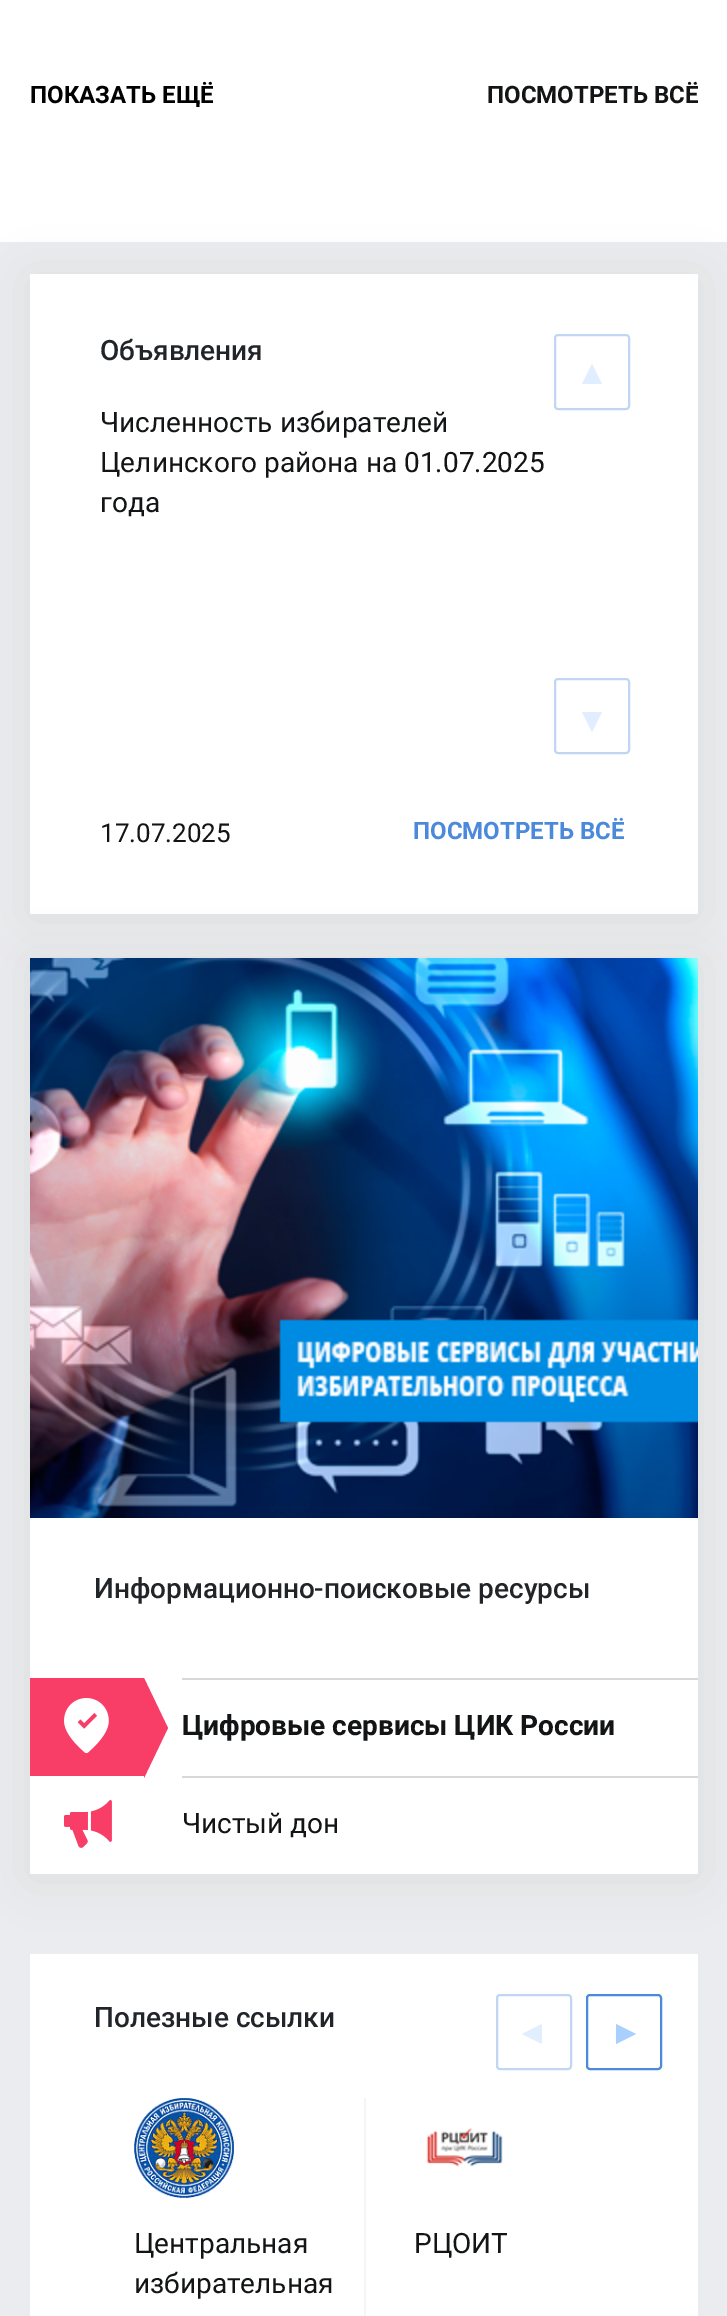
%!PS
<< /PageSize [727 2316] /PageUsesTransparency true >> setpagedevice
/rgb { 3 { 255 div 3 1 roll } repeat setrgbcolor } def
/font { [ exch dup neg 0 0 3 -1 roll 0 0 ] selectfont } def
/text { moveto show } def
/alpha { dup .setfillconstantalpha .setstrokeconstantalpha } def
/roundrect { 5 dict begin { /r /h /w /y /x } { exch def } forall
  x r add y moveto x w add y 2 copy h add r arct x w add y h add x 1 index r arct
  x y h add x y r arct x y 2 copy exch w add exch r arct closepath end } def
/shadow { 12 dict begin { /a /b /q /h /w /y /x } { exch def } forall gsave /was 0 def
  9 -2 -9 { dup b mul 4 div /e exch def 1 sub .425 mul 2.718 exch exp 1 add a .99 .min exch div /now exch def
    1 1 now sub 1 was sub div sub alpha /was now def
    w h .min e 2 mul add 0 gt { x e sub y e sub w e 2 mul add h e 2 mul add
      q e add b .6 mul add w h .min 2 div e add .min 0 .max roundrect fill } if } for grestore end } def
/picture { 5 dict begin { /h /w /y /x /name } { exch def } forall
  gsave x y translate w h scale
  w h 8 [w 0 0 h 0 0] name (r) file false 3 colorimage grestore end } def
0 .pushpdf14devicefilter
0 2316 translate 1 -1 scale
4 setmiterlimit
255 255 255 rgb
0 0 727 2316 rectfill
235 236 240 rgb
0 242 727 2074 rectfill
219 219 219 rgb
30 278 668 640 0 24 1 shadow
255 255 255 rgb
30 274 668 640 rectfill
192 214 242 rgb
2 setlinewidth
555 335 74 74 3 roundrect stroke
225 238 255 rgb
602 384 moveto -20 0 rlineto 10 -20 rlineto closepath fill
192 214 242 rgb
555 679 74 74 3 roundrect stroke
225 238 255 rgb
582 712 moveto 20 0 rlineto -10 20 rlineto closepath fill
219 219 219 rgb
30 962 668 916 0 24 1 shadow
255 255 255 rgb
30 1518 668 356 rectfill
(img_01.rgb) 30 958 668 560 picture
248 61 102 rgb
30 1678 114 98 rectfill
(img_02.rgb) 64 1698 45 56 picture
144 1778 moveto 0 -100 rlineto 24 50 rlineto closepath fill
216 216 216 rgb
182 1678 516 2 rectfill
(img_03.rgb) 64 1800 48 48 picture
182 1776 516 2 rectfill
255 255 255 rgb
30 1954 668 362 rectfill
192 214 242 rgb
497 1995 74 74 3 roundrect stroke
225 238 255 rgb
542 2024 moveto 0 20 rlineto -20 -10 rlineto closepath fill
75 137 218 rgb
587 1995 74 74 3 roundrect stroke
169 207 255 rgb
616 2044 moveto 0 -20 rlineto 20 10 rlineto closepath fill
(img_04.rgb) 134 2098 100 100 picture
245 245 245 rgb
364 2098 2 218 rectfill
(img_05.rgb) 426 2127 77 40 picture
/Roboto-Bold 24 font
0 0 0 rgb
(ПОКАЗАТЬ ЕЩЁ) 30 103 text
19 20 21 rgb
(ПОСМОТРЕТЬ ВСЁ) 487 103 text
/Roboto-Medium 28 font
33 37 41 rgb
(Объявления) 100 360 text
/Roboto-Regular 28 font
19 20 21 rgb
(Численность избирателей) 100 432 text
(Целинского района на 01.07.2025) 100 472 text
(года) 100 512 text
/Roboto-Regular 26 font
(17.07.2025) 100 842 text
/Roboto-Bold 24 font
75 137 218 rgb
(ПОСМОТРЕТЬ ВСЁ) 413 839 text
/Roboto-Medium 28 font
33 37 41 rgb
(Информационно-поисковые ресурсы) 94 1598 text
/Roboto-Bold 28 font
19 20 21 rgb
(Цифровые сервисы ЦИК России) 182 1735 text
/Roboto-Regular 28 font
(Чистый дон) 182 1833 text
/Roboto-Medium 28 font
33 37 41 rgb
(Полезные ссылки) 94 2027 text
/Roboto-Regular 28 font
19 20 21 rgb
(Центральная) 134 2253 text
(избирательная) 134 2293 text
(РЦОИТ) 414 2253 text
.poppdf14devicefilter showpage
